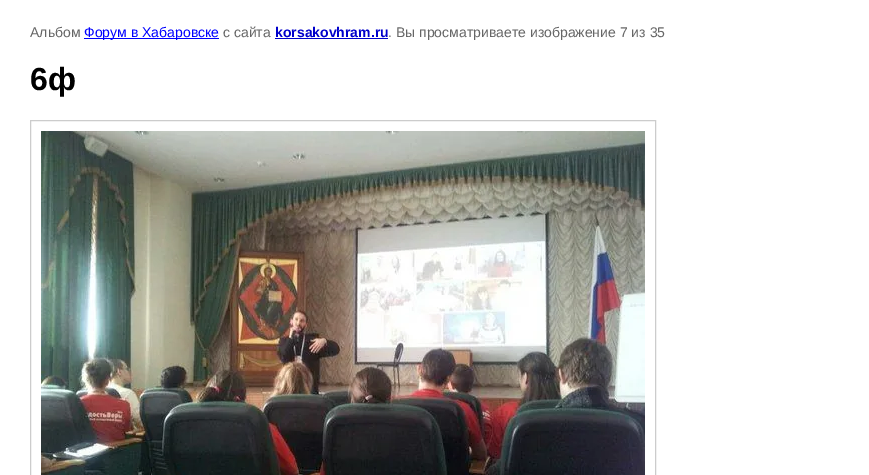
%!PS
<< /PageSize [869 475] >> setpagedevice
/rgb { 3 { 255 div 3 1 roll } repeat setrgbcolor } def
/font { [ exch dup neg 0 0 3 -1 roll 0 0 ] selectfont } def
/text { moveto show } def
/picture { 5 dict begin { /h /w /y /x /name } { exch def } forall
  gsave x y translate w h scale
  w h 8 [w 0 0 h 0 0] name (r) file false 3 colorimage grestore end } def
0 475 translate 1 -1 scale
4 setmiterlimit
255 255 255 rgb
0 0 869 475 rectfill
0 0 255 rgb
84 38 135 1 rectfill
0 0 204 rgb
275 38 113 1 rectfill
204 204 204 rgb
30.5 120.5 625 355 rectstroke
(img_01.rgb) 41 131 604 344 picture
/LiberationSans-Regular 14 font
102 102 102 rgb
(Альбом) 30 37 text
0 0 255 rgb
(Форум в Хабаровске) 84 37 text
102 102 102 rgb
(с сайта) 223 37 text
/LiberationSans-Bold 14 font
0 0 204 rgb
(korsakovhram.ru) 275 37 text
/LiberationSans-Regular 14 font
102 102 102 rgb
(. Вы просматриваете изображение 7 из 35) 388 37 text
/LiberationSans-Bold 32 font
0 0 0 rgb
(6ф) 30 90 text
showpage
